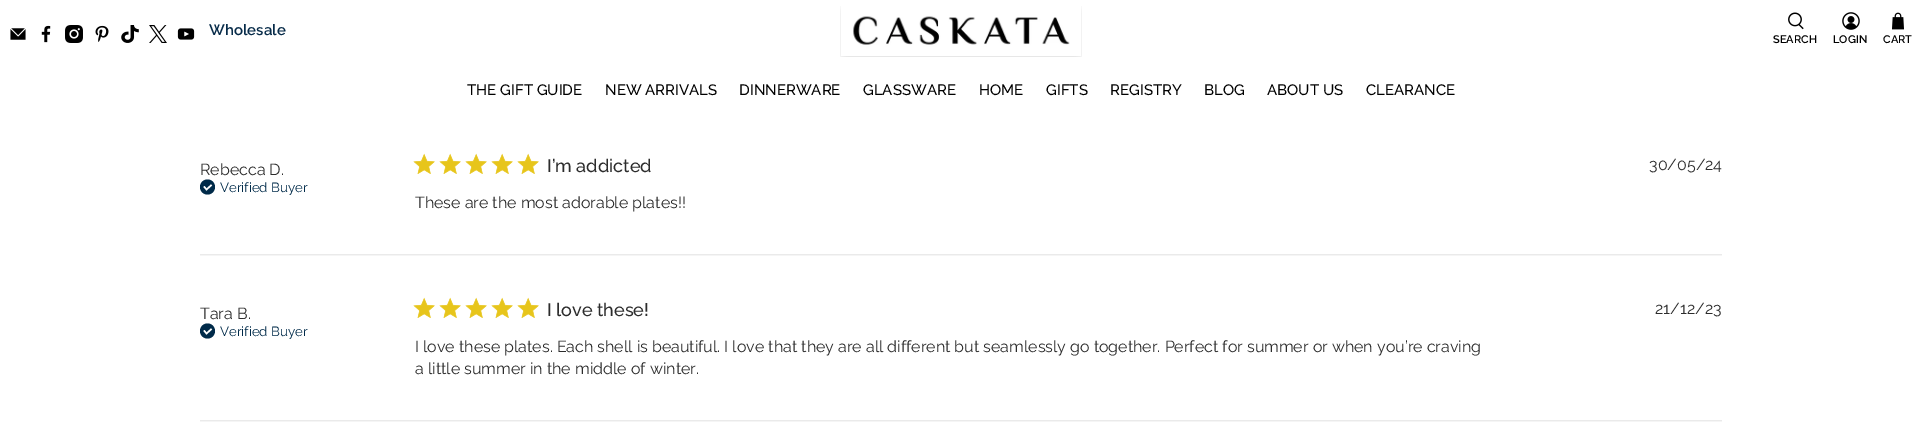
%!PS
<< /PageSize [1922 442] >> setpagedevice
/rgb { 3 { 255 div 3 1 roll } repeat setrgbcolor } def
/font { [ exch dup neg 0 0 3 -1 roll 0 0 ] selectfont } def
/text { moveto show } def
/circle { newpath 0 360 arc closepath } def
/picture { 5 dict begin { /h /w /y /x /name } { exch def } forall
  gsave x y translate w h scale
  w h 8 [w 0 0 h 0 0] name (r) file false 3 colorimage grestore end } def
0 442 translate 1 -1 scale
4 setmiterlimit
255 255 255 rgb
0 0 1922 442 rectfill
(img_01.rgb) 10 28 16 12 picture
(img_02.rgb) 41 25 10 18 picture
(img_03.rgb) 65 25 18 18 picture
(img_04.rgb) 95 25 14 17 picture
(img_05.rgb) 121 25 18 18 picture
(img_06.rgb) 149 25 18 18 picture
(img_07.rgb) 177 28 18 12 picture
(img_08.rgb) 840 6 242 51 picture
(img_09.rgb) 1788 12 16 18 picture
(img_10.rgb) 1842 12 18 18 picture
(img_11.rgb) 1892 12 12 18 picture
0 42 73 rgb
207.5 187 7.5 circle fill
255 255 255 rgb
1.5 setlinewidth
204 186.5 moveto 2.5 3 rlineto 5 -4.5 rlineto stroke
(img_12.rgb) 413 153 22 21 picture
(img_12.rgb) 439 153 22 21 picture
(img_12.rgb) 465 153 22 21 picture
(img_12.rgb) 491 153 22 21 picture
(img_12.rgb) 517 153 22 21 picture
(img_13.rgb) 200 254 1522 2 picture
0 42 73 rgb
207.5 331 7.5 circle fill
255 255 255 rgb
204 330.5 moveto 2.5 3 rlineto 5 -4.5 rlineto stroke
(img_12.rgb) 413 297 22 21 picture
(img_12.rgb) 439 297 22 21 picture
(img_12.rgb) 465 297 22 21 picture
(img_12.rgb) 491 297 22 21 picture
(img_12.rgb) 517 297 22 21 picture
(img_13.rgb) 200 420 1522 2 picture
/Raleway-SemiBold 15 font
7 43 73 rgb
(Wholesale) 209 35 text
/Raleway-SemiBold 11 font
0 0 0 rgb
(SEARCH) 1773 43 text
(LOGIN) 1833 43 text
(CART) 1883 43 text
/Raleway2-Thin 15 font
(THE GIFT GUIDE) 467 95 text
(NEW ARRIVALS) 605 95 text
(DINNERWARE) 739 95 text
(GLASSWARE) 863 95 text
(HOME) 979 95 text
(GIFTS) 1046 95 text
(REGISTRY) 1110 95 text
(BLOG) 1204 95 text
(ABOUT US) 1267 95 text
(CLEARANCE) 1366 95 text
/Raleway-Thin 16 font
44 44 44 rgb
(Rebecca D.) 200 175 text
/Raleway-Thin 13.25 font
0 42 73 rgb
(Verified Buyer) 220 192 text
/Raleway2-Thin 18 font
44 44 44 rgb
(I’m addicted) 547 172 text
/Raleway-Thin 16 font
(These are the most adorable plates!!) 415 208 text
(30/05/24) 1649 170 text
(Tara B.) 200 319 text
/Raleway-Thin 13.25 font
0 42 73 rgb
(Verified Buyer) 220 336 text
/Raleway2-Thin 18 font
44 44 44 rgb
(I love these!) 547 316 text
/Raleway-Thin 16 font
(I love these plates. Each shell is beautiful. I love that they are all different but seamlessly go together. Perfect for summer or when you’re craving) 415 352 text
(a little summer in the middle of winter.) 415 374 text
(21/12/23) 1655 314 text
showpage
